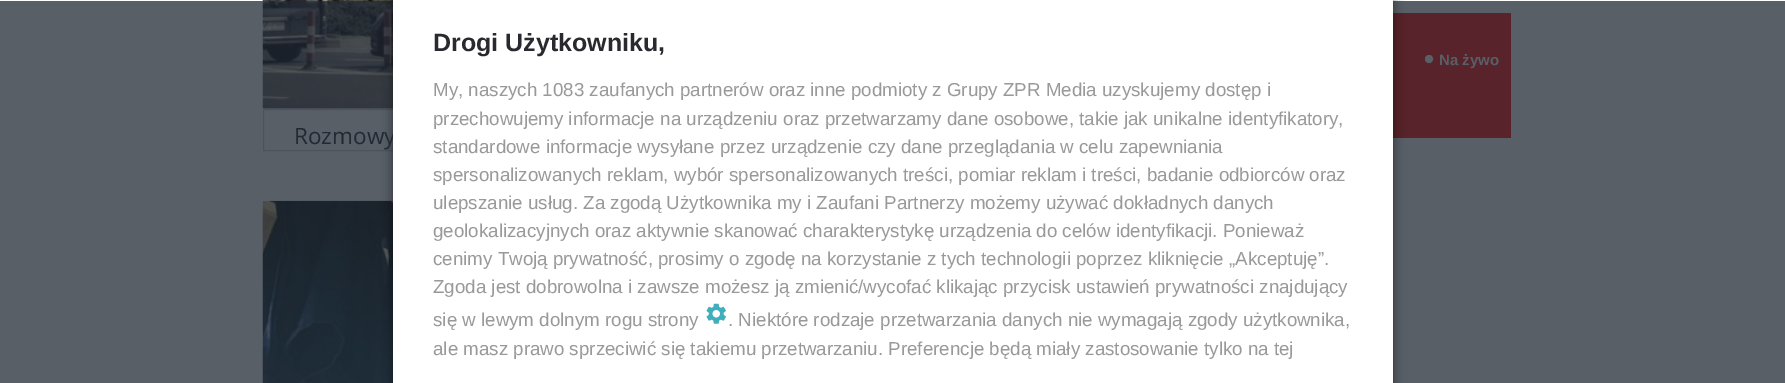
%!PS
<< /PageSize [1785 383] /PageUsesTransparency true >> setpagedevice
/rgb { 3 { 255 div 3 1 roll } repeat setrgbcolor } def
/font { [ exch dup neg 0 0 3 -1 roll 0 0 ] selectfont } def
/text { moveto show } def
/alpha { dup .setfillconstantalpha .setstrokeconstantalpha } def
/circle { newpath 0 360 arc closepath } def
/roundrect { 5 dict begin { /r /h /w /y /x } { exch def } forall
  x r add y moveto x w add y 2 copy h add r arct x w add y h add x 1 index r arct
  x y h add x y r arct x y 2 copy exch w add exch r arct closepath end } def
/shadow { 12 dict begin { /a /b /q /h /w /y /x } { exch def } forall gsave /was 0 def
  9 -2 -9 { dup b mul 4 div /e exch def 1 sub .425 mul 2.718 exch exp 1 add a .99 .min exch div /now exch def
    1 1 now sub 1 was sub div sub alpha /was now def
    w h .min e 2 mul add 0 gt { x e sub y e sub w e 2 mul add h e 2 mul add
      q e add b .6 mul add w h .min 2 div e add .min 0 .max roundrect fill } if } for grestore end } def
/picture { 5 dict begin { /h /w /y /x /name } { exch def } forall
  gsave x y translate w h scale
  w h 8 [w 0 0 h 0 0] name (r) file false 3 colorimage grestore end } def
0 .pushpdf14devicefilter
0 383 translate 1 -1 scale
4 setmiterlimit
255 255 255 rgb
0 0 1785 383 rectfill
89 95 103 rgb
0 1 1785 382 rectfill
88 35 42 rgb
1393 13 118 125 rectfill
73 79 87 rgb
263 108 130 1 rectfill
(img_02.rgb) 262 0 131 109 picture
75 83 93 rgb
263.5 109.5 829 41 rectstroke
(img_03.rgb) 262 200 131 183 picture
0 0 0 rgb
393 -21 1000 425 2.5 6 0.5 shadow
89 95 103 rgb
1429 59 3.5 circle gsave fill grestore
stroke
/LiberationSans-Bold 15 font
(Na żywo) 1439 65 text
/OpenSans-Regular 22.5 font
35 41 51 rgb
(Rozmowy) 294 144 text
255 255 255 rgb
393 0 1000 383 rectfill
(img_01.rgb) 706 303 20 21 picture
/LiberationSans-Regular 18.75 font
153 153 153 rgb
(ale masz prawo sprzeciwić się takiemu przetwarzaniu. Preferencje będą miały zastosowanie tylko na tej) 433 355 text
(. Niektóre rodzaje przetwarzania danych nie wymagają zgody użytkownika,) 728 326 text
(się w lewym dolnym rogu strony) 433 326 text
(Zgoda jest dobrowolna i zawsze możesz ją zmienić/wycofać klikając przycisk ustawień prywatności znajdujący) 433 293 text
(cenimy Twoją prywatność, prosimy o zgodę na korzystanie z tych technologii poprzez kliknięcie „Akceptuję”.) 433 265 text
(geolokalizacyjnych oraz aktywnie skanować charakterystykę urządzenia do celów identyfikacji. Ponieważ) 433 237 text
(ulepszanie usług. Za zgodą Użytkownika my i Zaufani Partnerzy możemy używać dokładnych danych) 433 209 text
(spersonalizowanych reklam, wybór spersonalizowanych treści, pomiar reklam i treści, badanie odbiorców oraz) 433 181 text
(standardowe informacje wysyłane przez urządzenie czy dane przeglądania w celu zapewniania) 433 153 text
(przechowujemy informacje na urządzeniu oraz przetwarzamy dane osobowe, takie jak unikalne identyfikatory,) 433 125 text
(My, naszych 1083 zaufanych partnerów oraz inne podmioty z Grupy ZPR Media uzyskujemy dostęp i) 433 96 text
/LiberationSans-Bold 25 font
41 41 47 rgb
(Drogi Użytkowniku,) 433 51 text
.poppdf14devicefilter showpage
